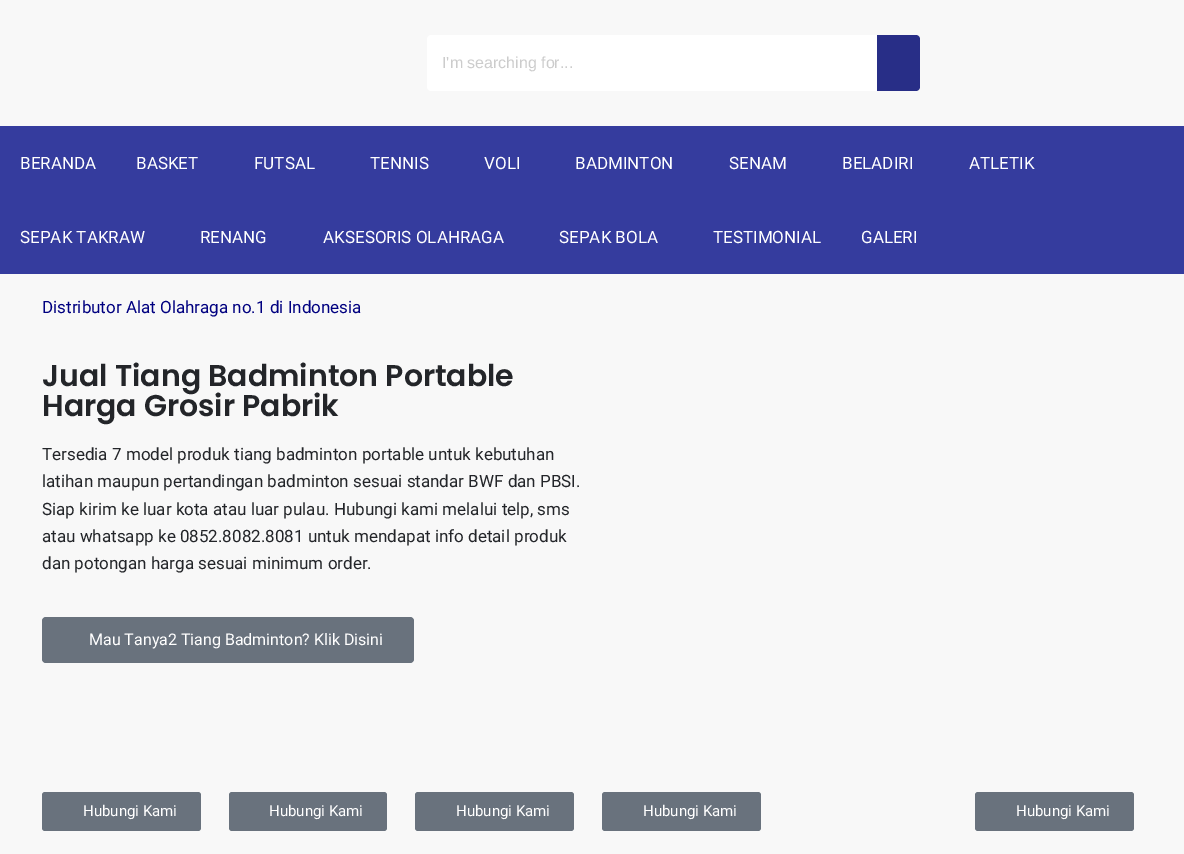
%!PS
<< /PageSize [1184 854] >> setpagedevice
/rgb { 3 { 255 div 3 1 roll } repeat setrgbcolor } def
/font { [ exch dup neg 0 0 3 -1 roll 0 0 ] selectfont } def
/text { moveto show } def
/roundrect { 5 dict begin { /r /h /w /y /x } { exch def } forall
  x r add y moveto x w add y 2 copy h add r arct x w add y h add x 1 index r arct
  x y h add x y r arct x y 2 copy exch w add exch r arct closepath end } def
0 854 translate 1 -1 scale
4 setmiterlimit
248 248 248 rgb
0 0 1184 854 rectfill
255 255 255 rgb
431 35 moveto 446 0 rlineto 0 56 rlineto -446 0 rlineto -2 0 -4 -2 -4 -4 rcurveto 0 -48 rlineto 0 -2 2 -4 4 -4 rcurveto closepath fill
40 46 135 rgb
877 35 moveto 39 0 rlineto 2 0 4 2 4 4 rcurveto 0 48 rlineto 0 2 -2 4 -4 4 rcurveto -39 0 rlineto closepath fill
53 60 158 rgb
0 126 1184 148 rectfill
105 114 125 rgb
42 617 372 46 4 roundrect fill
42 792 159 39 3 roundrect fill
229 792 158 39 3 roundrect fill
415 792 159 39 3 roundrect fill
602 792 159 39 3 roundrect fill
975 792 159 39 3 roundrect fill
/LiberationSans-Regular 16 font
204 204 204 rgb
(I'm searching for...) 442 68 text
/Roboto-Regular 17 font
255 255 255 rgb
(BERANDA) 20 169 text
(BASKET) 136 169 text
(FUTSAL) 254 169 text
(TENNIS) 370 169 text
(VOLI) 484 169 text
(BADMINTON) 575 169 text
(SENAM) 729 169 text
(BELADIRI) 842 169 text
(ATLETIK) 969 169 text
(SEPAK TAKRAW) 20 243 text
(RENANG) 200 243 text
(AKSESORIS OLAHRAGA) 323 243 text
(SEPAK BOLA) 559 243 text
(TESTIMONIAL) 713 243 text
(GALERI) 861 243 text
0 0 128 rgb
(Distributor Alat Olahraga no.1 di Indonesia) 42 313 text
/Poppins-SemiBold 30 font
35 37 41 rgb
(Jual Tiang Badminton Portable) 42 386 text
(Harga Grosir Pabrik) 42 416 text
/Roboto-Regular 17 font
(Tersedia 7 model produk tiang badminton portable untuk kebutuhan) 42 460 text
(latihan maupun pertandingan badminton sesuai standar BWF dan PBSI.) 42 487 text
(Siap kirim ke luar kota atau luar pulau. Hubungi kami melalui telp, sms) 42 515 text
(atau whatsapp ke 0852.8082.8081 untuk mendapat info detail produk) 42 542 text
(dan potongan harga sesuai minimum order.) 42 569 text
/Roboto-Regular 16 font
255 255 255 rgb
(Mau Tanya2 Tiang Badminton? Klik Disini) 89 645 text
/Roboto-Regular 15 font
(Hubungi Kami) 83 816 text
(Hubungi Kami) 269 816 text
(Hubungi Kami) 456 816 text
(Hubungi Kami) 643 816 text
(Hubungi Kami) 1016 816 text
showpage
